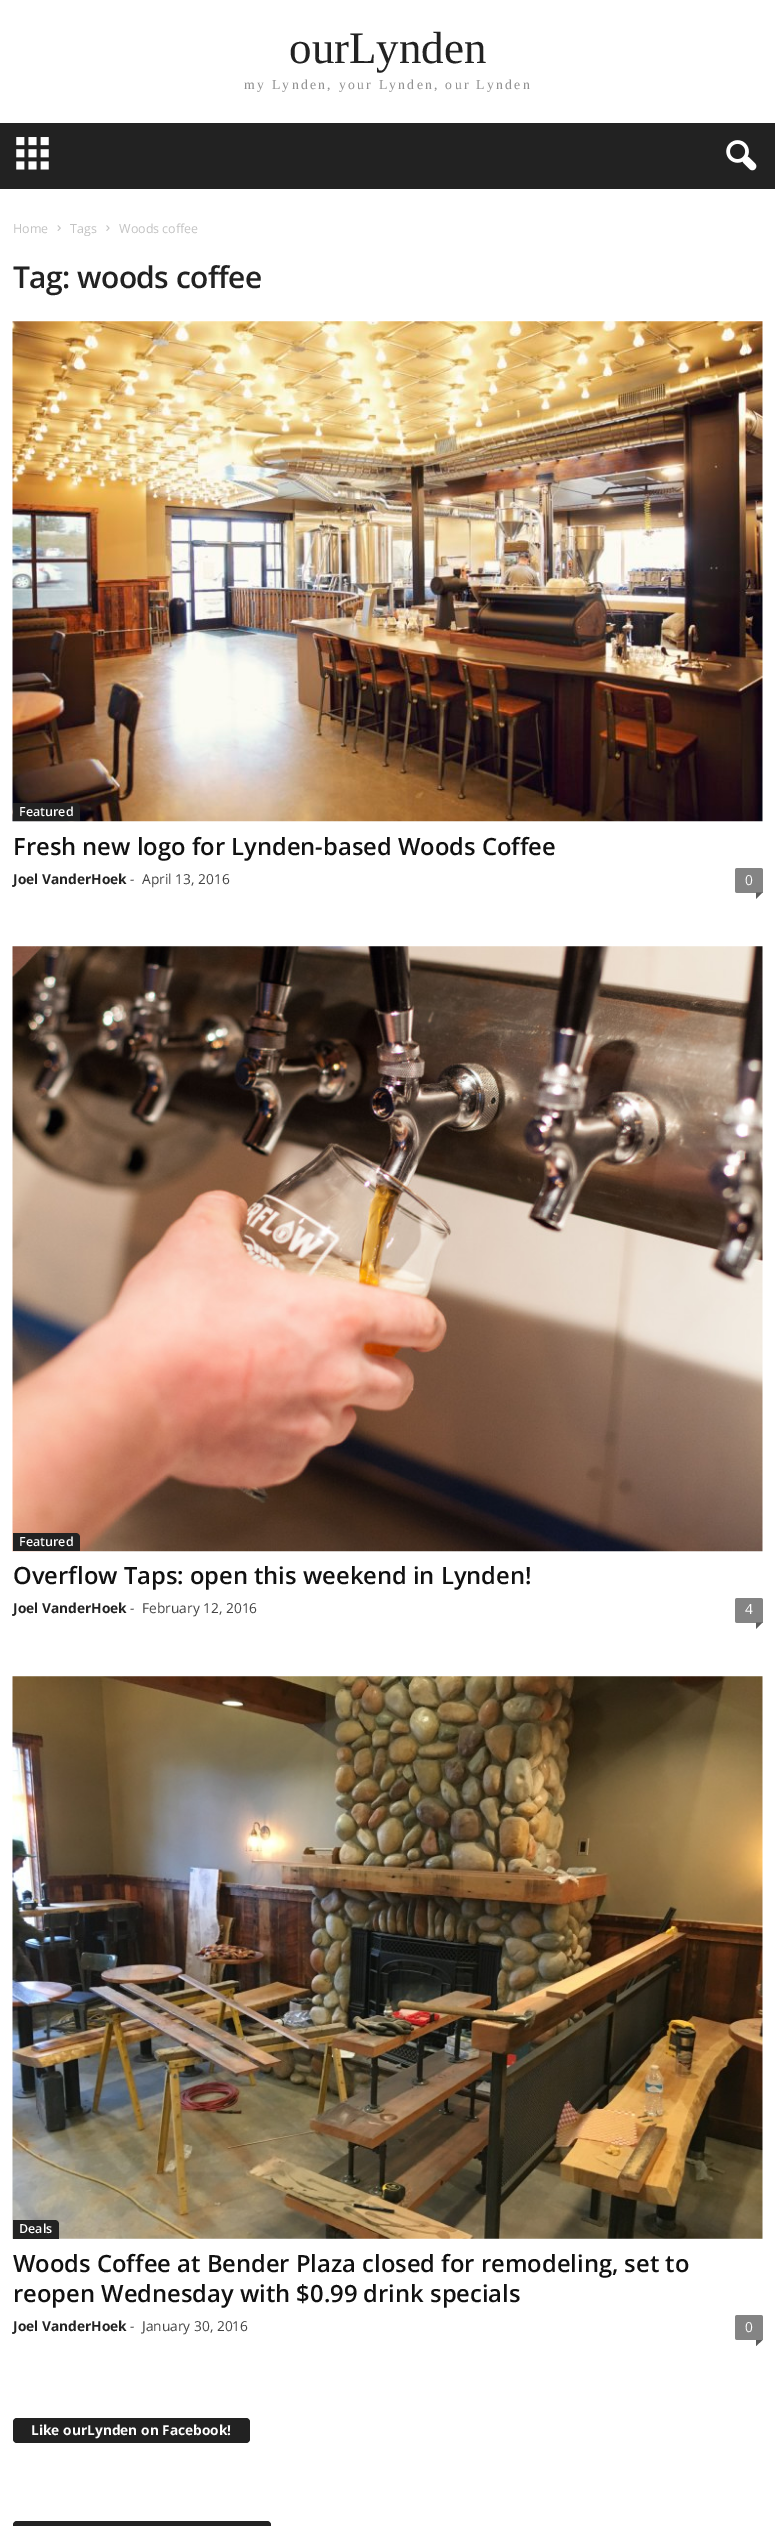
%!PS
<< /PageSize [775 2526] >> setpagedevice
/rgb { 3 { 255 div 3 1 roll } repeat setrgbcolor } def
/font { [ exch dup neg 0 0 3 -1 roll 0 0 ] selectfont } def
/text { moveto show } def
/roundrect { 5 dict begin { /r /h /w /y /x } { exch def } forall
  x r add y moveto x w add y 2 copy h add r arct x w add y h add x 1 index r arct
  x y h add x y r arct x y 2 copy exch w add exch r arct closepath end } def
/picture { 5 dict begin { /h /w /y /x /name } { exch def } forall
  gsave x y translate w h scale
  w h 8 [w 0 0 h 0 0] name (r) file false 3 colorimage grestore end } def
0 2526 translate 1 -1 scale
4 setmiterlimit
255 255 255 rgb
0 0 775 2526 rectfill
34 34 34 rgb
0 123 775 66 rectfill
(img_01.rgb) 16 137 33 33 picture
(img_02.rgb) 726 140 31 31 picture
(img_03.rgb) 57 225 4 6 picture
(img_04.rgb) 106 225 4 6 picture
(img_05.rgb) 12 321 751 501 picture
13 803 moveto 63 0 rlineto 2 0 4 2 4 4 rcurveto 0 14 rlineto -67 0 rlineto closepath fill
132 132 132 rgb
737.5 868 moveto 23 0 rlineto 1.5 0 2.5 1 2.5 2.5 rcurveto 0 22.5 rlineto -25.5 0 rlineto -1.5 0 -2.5 -1 -2.5 -2.5 rcurveto 0 -20 rlineto 0 -1.5 1 -2.5 2.5 -2.5 rcurveto closepath fill
91 91 91 rgb
756 892.5 moveto 6.5 0 rlineto -6.5 6.5 rlineto closepath fill
(img_06.rgb) 12 946 751 606 picture
34 34 34 rgb
13 1533 moveto 63 0 rlineto 2 0 4 2 4 4 rcurveto 0 14 rlineto -67 0 rlineto closepath fill
132 132 132 rgb
737.5 1598 moveto 23 0 rlineto 1.5 0 2.5 1 2.5 2.5 rcurveto 0 22.5 rlineto -25.5 0 rlineto -1.5 0 -2.5 -1 -2.5 -2.5 rcurveto 0 -20 rlineto 0 -1.5 1 -2.5 2.5 -2.5 rcurveto closepath fill
91 91 91 rgb
756 1622.5 moveto 6.5 0 rlineto -6.5 6.5 rlineto closepath fill
(img_07.rgb) 12 1676 751 563 picture
34 34 34 rgb
13 2220 moveto 42 0 rlineto 2 0 4 2 4 4 rcurveto 0 15 rlineto -46 0 rlineto closepath fill
132 132 132 rgb
737.5 2315 moveto 23 0 rlineto 1.5 0 2.5 1 2.5 2.5 rcurveto 0 22.5 rlineto -25.5 0 rlineto -1.5 0 -2.5 -1 -2.5 -2.5 rcurveto 0 -20 rlineto 0 -1.5 1 -2.5 2.5 -2.5 rcurveto closepath fill
91 91 91 rgb
756 2340 moveto 6.5 0 rlineto -6.5 6 rlineto closepath fill
34 34 34 rgb
13 2418 237 25 4 roundrect fill
13 2521 258 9 4 roundrect fill
/LiberationSerif-Regular 45 font
(ourLynden) 289 63 text
/LiberationSerif-Regular 13.75 font
145 145 145 rgb
244 89 moveto 2.25 0 (my Lynden, your Lynden, our Lynden) ashow
/OpenSans-Regular 12.5 font
195 195 195 rgb
(Home) 13 233 text
(Tags) 70 233 text
(Woods coffee) 119 233 text
/OpenSans-SemiBold 30 font
34 34 34 rgb
13 288 moveto -0.6 0 (Tag: woods coffee) ashow
/OpenSans-SemiBold 12.5 font
255 255 255 rgb
(Featured) 19 816 text
/OpenSans-SemiBold 23.75 font
17 17 17 rgb
(Fresh new logo for Lynden-based Woods Coffee) 13 855 text
/OpenSans-Bold 13.75 font
34 34 34 rgb
(Joel VanderHoek) 13 884 text
/OpenSans-Regular 13.75 font
68 68 68 rgb
(-) 130 884 text
(April 13, 2016) 142 884 text
255 255 255 rgb
(0) 745 885 text
/OpenSans-SemiBold 12.5 font
(Featured) 19 1546 text
/OpenSans-SemiBold 23.75 font
17 17 17 rgb
(Overflow Taps: open this weekend in Lynden!) 13 1584 text
/OpenSans-Bold 13.75 font
34 34 34 rgb
(Joel VanderHoek) 13 1613 text
/OpenSans-Regular 13.75 font
68 68 68 rgb
(-) 130 1613 text
(February 12, 2016) 142 1613 text
255 255 255 rgb
(4) 745 1614 text
/OpenSans-SemiBold 12.5 font
(Deals) 19 2233 text
/OpenSans-SemiBold 23.75 font
17 17 17 rgb
(Woods Coffee at Bender Plaza closed for remodeling, set to) 13 2272 text
(reopen Wednesday with $0.99 drink specials) 13 2302 text
/OpenSans-Bold 13.75 font
34 34 34 rgb
(Joel VanderHoek) 13 2331 text
/OpenSans-Regular 13.75 font
68 68 68 rgb
(-) 130 2331 text
(January 30, 2016) 142 2331 text
255 255 255 rgb
(0) 745 2332 text
/OpenSans-Bold 13.75 font
(Like ourLynden on Facebook!) 31 2435 text
showpage
